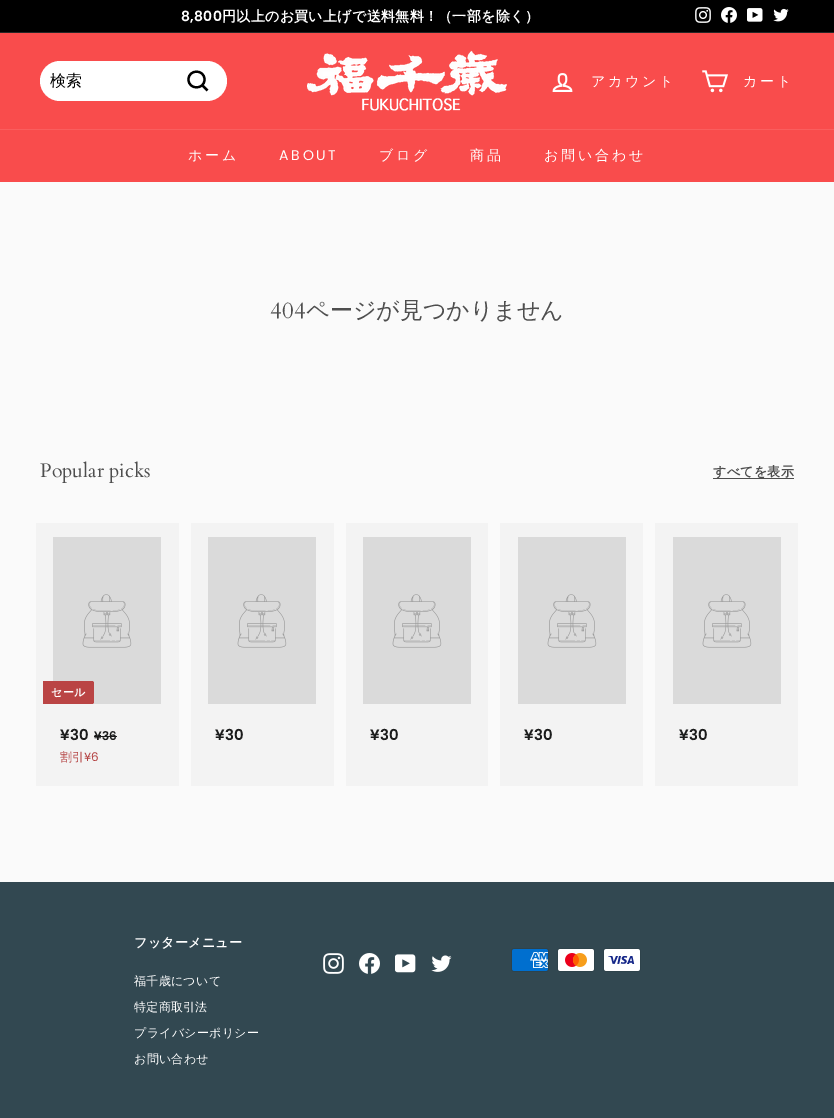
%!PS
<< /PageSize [834 1118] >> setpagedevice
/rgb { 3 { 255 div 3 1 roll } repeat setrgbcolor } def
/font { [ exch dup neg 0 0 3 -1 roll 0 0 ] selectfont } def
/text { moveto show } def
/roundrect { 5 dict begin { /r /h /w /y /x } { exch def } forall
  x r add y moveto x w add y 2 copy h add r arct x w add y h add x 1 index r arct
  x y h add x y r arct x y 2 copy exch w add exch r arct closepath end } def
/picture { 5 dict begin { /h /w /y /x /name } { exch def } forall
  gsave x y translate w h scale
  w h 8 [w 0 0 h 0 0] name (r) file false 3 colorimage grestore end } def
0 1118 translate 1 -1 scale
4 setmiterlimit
250 250 250 rgb
0 0 834 1118 rectfill
243 243 243 rgb
655 523 143 263 rectfill
500 523 143 263 rectfill
346 523 142 263 rectfill
191 523 143 263 rectfill
36 523 143 263 rectfill
0 0 0 rgb
0 0 834 32 rectfill
(img_01.rgb) 695 7 16 16 picture
(img_02.rgb) 721 7 16 16 picture
(img_03.rgb) 747 8 16 14 picture
(img_04.rgb) 773 8 16 14 picture
38 38 38 rgb
0 32 834 1 rectfill
249 76 76 rgb
0 33 834 96 rectfill
255 255 255 rgb
40 61 187 40 20 roundrect fill
0 0 0 rgb
2.2 setlinewidth
204.5 79.5 moveto 0 10.5 -16 10.5 -16 0 rcurveto 0 -10.5 16 -10.5 16 0 rcurveto closepath 207.5 90.5 moveto -5 -5 rlineto stroke
(img_05.rgb) 307 50 200 61 picture
(img_06.rgb) 552 73 21 19 picture
(img_07.rgb) 702 70 26 23 picture
250 94 94 rgb
0 129 834 1 rectfill
249 76 76 rgb
0 130 834 52 rectfill
78 78 78 rgb
713 478 81 1 rectfill
218 218 218 rgb
53 537 108 167 rectfill
(img_08.rgb) 82 594 50 54 picture
186 68 68 rgb
43 681 moveto 49 0 rlineto 1 0 2 1 2 2 rcurveto 0 19 rlineto 0 1 -1 2 -2 2 rcurveto -49 0 rlineto closepath fill
27 28 28 rgb
94 736 23 1 rectfill
218 218 218 rgb
208 537 108 167 rectfill
(img_08.rgb) 237 594 50 54 picture
363 537 108 167 rectfill
(img_08.rgb) 392 594 50 54 picture
518 537 108 167 rectfill
(img_08.rgb) 547 594 50 54 picture
673 537 108 167 rectfill
(img_08.rgb) 702 594 50 54 picture
50 72 81 rgb
0 882 834 236 rectfill
(img_09.rgb) 323 953 21 21 picture
(img_10.rgb) 359 953 21 21 picture
(img_11.rgb) 395 954 21 19 picture
(img_12.rgb) 431 955 21 17 picture
(img_13.rgb) 511 948 38 24 picture
(img_14.rgb) 557 948 38 24 picture
(img_15.rgb) 603 948 38 24 picture
/Poppins-SemiBold 14 font
255 255 255 rgb
181 21 moveto 0.3 0 (8,800) ashow
/WenQuanYiZenHei-Bold 14 font
222 21 moveto 0.3 0 (円以上のお買い上げで送料無料！（一部を除く）) ashow
/WenQuanYiZenHei-Medium 16 font
0 0 0 rgb
(検索) 50 86 text
/WenQuanYiZenHei-Medium 14 font
255 255 255 rgb
591 86 moveto 2.75 0 (アカウント) ashow
743 86 moveto 2.75 0 (カート) ashow
188 160 moveto 2.75 0 (ホーム) ashow
/Poppins-Regular 14 font
279 160 moveto 2.75 0 (ABOUT) ashow
/WenQuanYiZenHei-Medium 14 font
379 160 moveto 2.75 0 (ブログ) ashow
470 160 moveto 2.75 0 (商品) ashow
544 160 moveto 2.75 0 (お問い合わせ) ashow
/Cardo-Regular 23 font
78 78 78 rgb
(404) 270 318 text
/WenQuanYiZenHei-Medium 23 font
(ページが見つかりません) 306 318 text
/Cardo-Regular 19.5 font
(Popular picks) 40 477 text
/WenQuanYiZenHei-Bold 13 font
713 476 moveto 0.3 0 (すべてを表示) ashow
/WenQuanYiZenHei-Bold 11 font
255 255 255 rgb
51 696 moveto 0.5 0 (セール) ashow
/Poppins-SemiBold 15 font
27 28 28 rgb
60 740 moveto 0.3 0 (¥30) ashow
/Poppins-SemiBold 12 font
94 740 moveto 0.3 0 (¥36) ashow
/WenQuanYiZenHei-Medium 12 font
180 66 66 rgb
60 761 moveto 0.3 0 (割引) ashow
/Poppins-Regular 12 font
84 761 moveto 0.3 0 (¥6) ashow
/Poppins-SemiBold 15 font
27 28 28 rgb
215 740 moveto 0.3 0 (¥30) ashow
370 740 moveto 0.3 0 (¥30) ashow
524 740 moveto 0.3 0 (¥30) ashow
679 740 moveto 0.3 0 (¥30) ashow
/WenQuanYiZenHei-Bold 13 font
255 255 255 rgb
134 947 moveto 0.3 0 (フッターメニュー) ashow
/WenQuanYiZenHei-Medium 12 font
134 985 moveto 0.3 0 (福千歳について) ashow
134 1011 moveto 0.3 0 (特定商取引法) ashow
134 1037 moveto 0.3 0 (プライバシーポリシー) ashow
134 1063 moveto 0.3 0 (お問い合わせ) ashow
showpage
